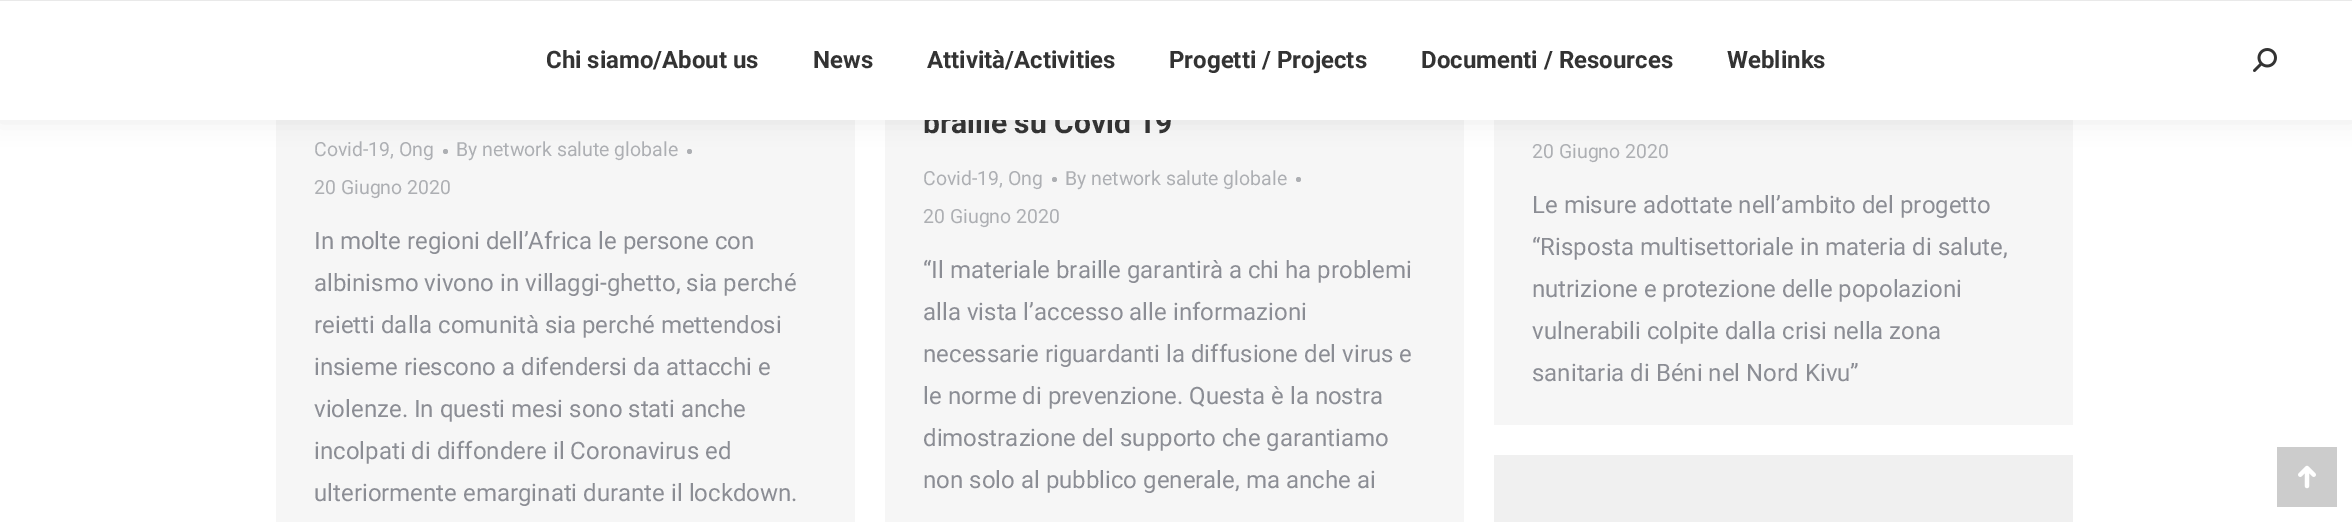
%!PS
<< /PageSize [2352 522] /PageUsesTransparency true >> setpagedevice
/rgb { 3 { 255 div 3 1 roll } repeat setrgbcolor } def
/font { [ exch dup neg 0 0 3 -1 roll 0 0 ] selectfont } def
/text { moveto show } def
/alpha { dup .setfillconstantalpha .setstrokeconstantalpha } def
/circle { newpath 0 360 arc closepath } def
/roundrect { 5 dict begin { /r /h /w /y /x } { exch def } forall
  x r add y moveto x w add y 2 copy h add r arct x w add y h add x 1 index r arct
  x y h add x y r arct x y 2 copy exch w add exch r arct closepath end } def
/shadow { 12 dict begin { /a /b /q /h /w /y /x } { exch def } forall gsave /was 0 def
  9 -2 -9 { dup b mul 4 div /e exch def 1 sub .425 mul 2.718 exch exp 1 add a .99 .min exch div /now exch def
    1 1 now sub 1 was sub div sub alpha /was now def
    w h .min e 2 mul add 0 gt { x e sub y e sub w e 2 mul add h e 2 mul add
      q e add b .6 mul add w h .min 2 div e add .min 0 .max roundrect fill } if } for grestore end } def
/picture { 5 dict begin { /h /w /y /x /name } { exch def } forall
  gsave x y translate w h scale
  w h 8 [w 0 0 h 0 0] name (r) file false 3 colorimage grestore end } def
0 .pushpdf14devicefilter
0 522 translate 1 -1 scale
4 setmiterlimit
255 255 255 rgb
0 0 2352 522 rectfill
246 246 246 rgb
276 120 579 402 rectfill
173 175 179 rgb
445.5 151.5 2.5 circle fill
689.5 151.5 2.5 circle fill
246 246 246 rgb
885 120 579 402 rectfill
1494 120 579 305 rectfill
0 0 0 rgb
-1 -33 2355 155 0 11 0.07 shadow
233 233 233 rgb
0 0 2352 1 rectfill
173 175 179 rgb
1054.5 179.5 2.5 circle fill
1298.5 179.5 2.5 circle fill
240 240 240 rgb
1494 455 579 67 rectfill
204 204 204 rgb
2277 447 60 60 rectfill
(img_02.rgb) 2298 465 18 24 picture
/Roboto-Regular 19.5 font
173 175 179 rgb
(Covid-19, Ong) 314 156 text
(By network salute globale) 456 156 text
(20 Giugno 2020) 314 194 text
/Roboto-Regular 24 font
139 141 148 rgb
(In molte regioni dell’Africa le persone con) 314 249 text
(albinismo vivono in villaggi-ghetto, sia perché) 314 291 text
(reietti dalla comunità sia perché mettendosi) 314 333 text
(insieme riescono a difendersi da attacchi e) 314 375 text
(violenze. In questi mesi sono stati anche) 314 417 text
(incolpati di diffondere il Coronavirus ed) 314 459 text
(ulteriormente emarginati durante il lockdown.) 314 501 text
/Roboto-Bold 30 font
51 51 51 rgb
(braille su Covid 19) 923 133 text
255 255 255 rgb
0 1 2352 119 rectfill
(img_01.rgb) 2253 48 24 24 picture
/Roboto-Bold 24 font
51 51 51 rgb
(Weblinks) 1727 68 text
(Documenti / Resources) 1421 68 text
(Progetti / Projects) 1169 68 text
(Attività/Activities) 927 68 text
(News) 813 68 text
(Chi siamo/About us) 546 68 text
/Roboto-Regular 19.5 font
173 175 179 rgb
(Covid-19, Ong) 923 185 text
(By network salute globale) 1065 185 text
(20 Giugno 2020) 923 223 text
/Roboto-Regular 24 font
139 141 148 rgb
(“Il materiale braille garantirà a chi ha problemi) 923 278 text
(alla vista l’accesso alle informazioni) 923 320 text
(necessarie riguardanti la diffusione del virus e) 923 362 text
(le norme di prevenzione. Questa è la nostra) 923 404 text
(dimostrazione del supporto che garantiamo) 923 446 text
(non solo al pubblico generale, ma anche ai) 923 488 text
/Roboto-Regular 19.5 font
173 175 179 rgb
(20 Giugno 2020) 1532 158 text
/Roboto-Regular 24 font
139 141 148 rgb
(Le misure adottate nell’ambito del progetto) 1532 213 text
(“Risposta multisettoriale in materia di salute,) 1532 255 text
(nutrizione e protezione delle popolazioni) 1532 297 text
(vulnerabili colpite dalla crisi nella zona) 1532 339 text
(sanitaria di Béni nel Nord Kivu”) 1532 381 text
.poppdf14devicefilter showpage
